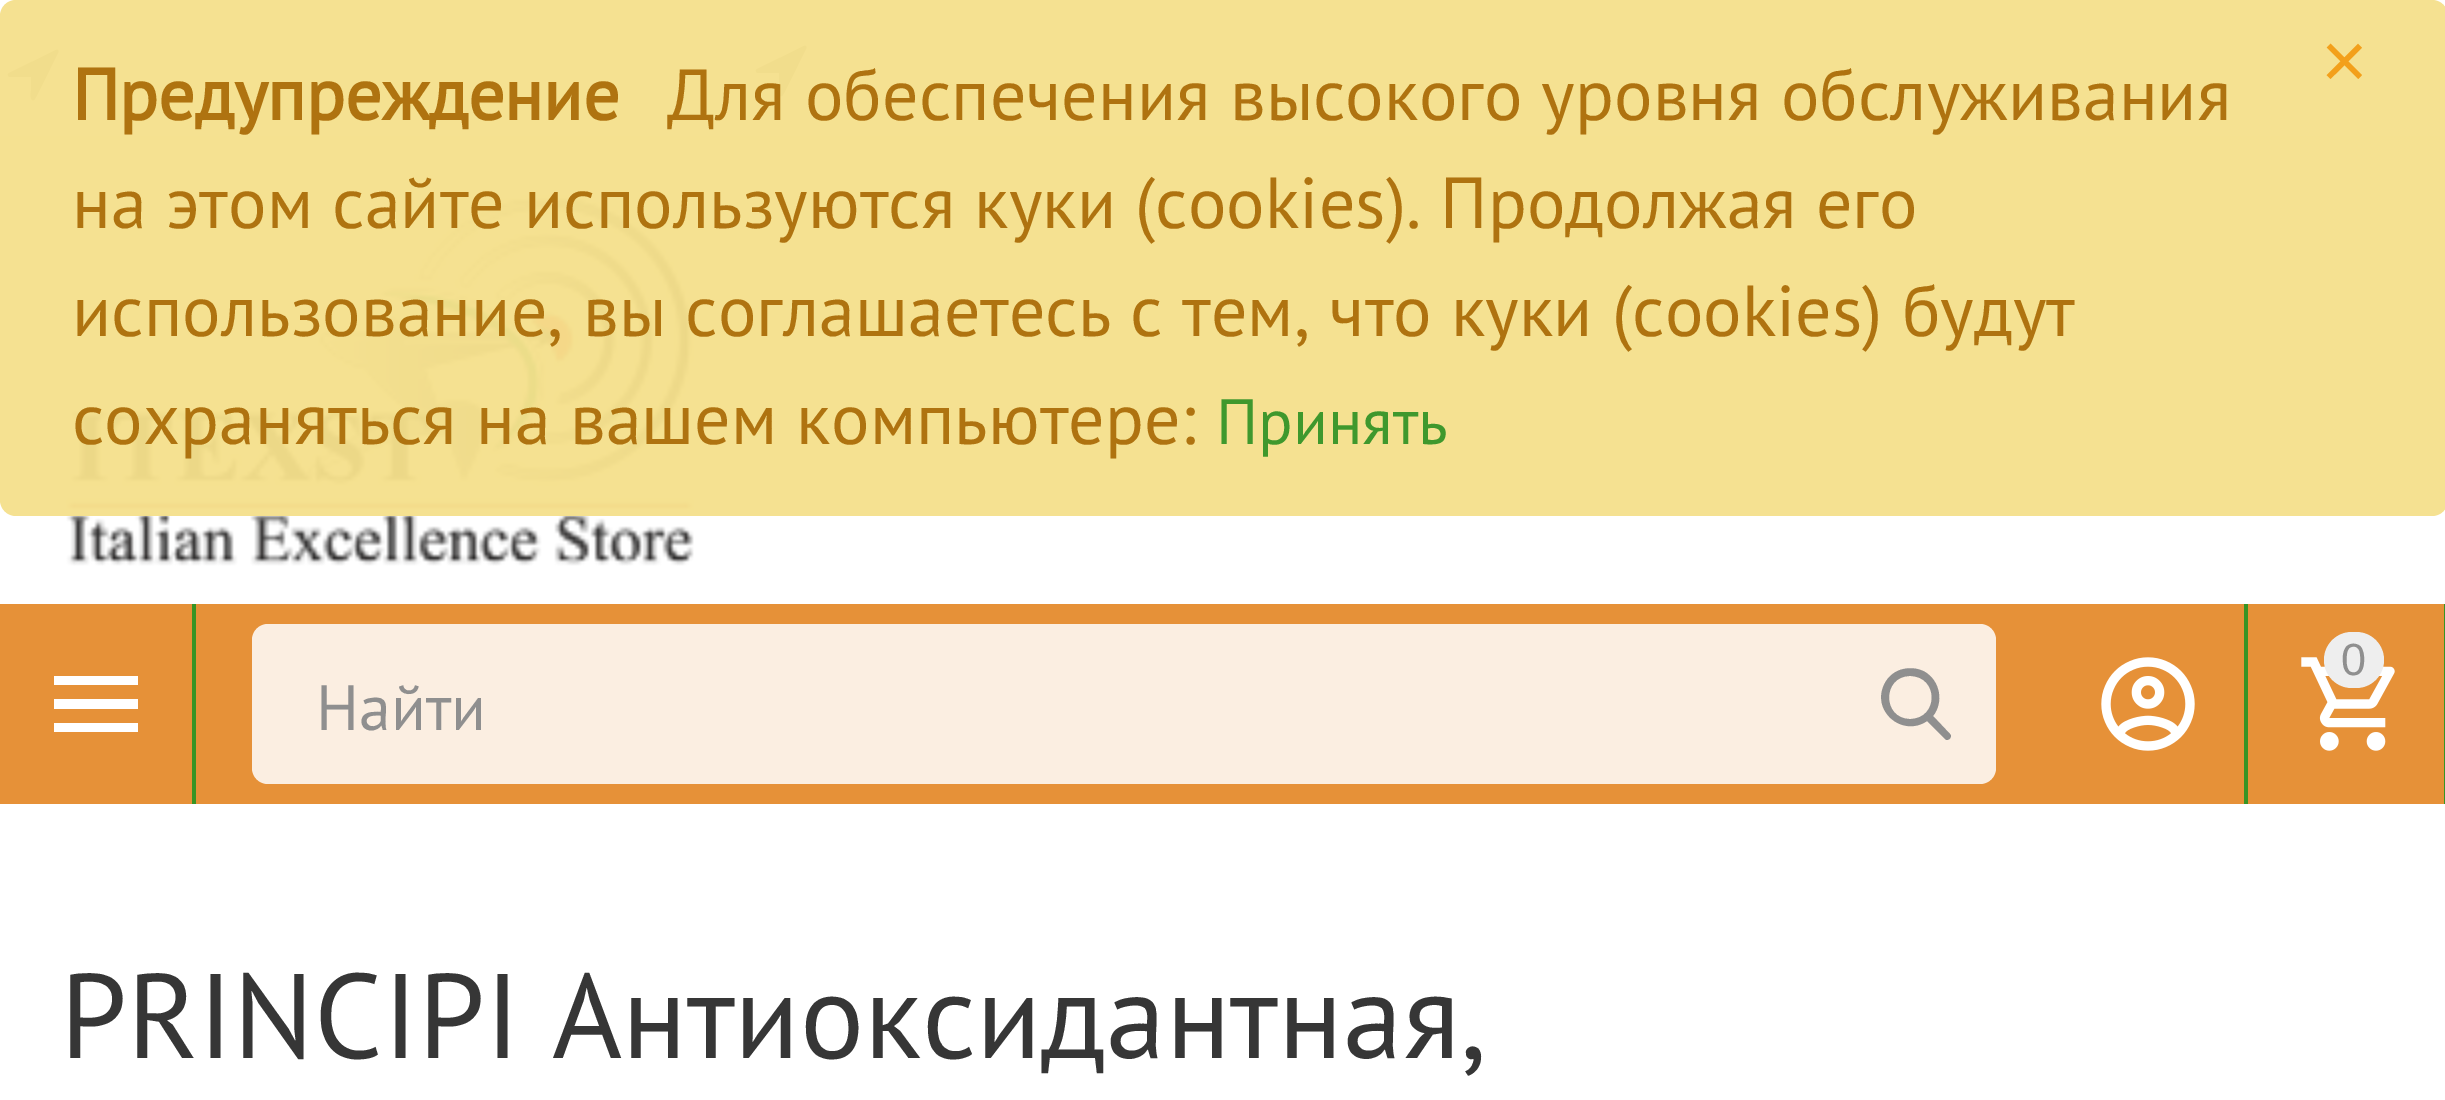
%!PS
<< /PageSize [2445 1100] /PageUsesTransparency true >> setpagedevice
/rgb { 3 { 255 div 3 1 roll } repeat setrgbcolor } def
/font { [ exch dup neg 0 0 3 -1 roll 0 0 ] selectfont } def
/text { moveto show } def
/alpha { dup .setfillconstantalpha .setstrokeconstantalpha } def
/roundrect { 5 dict begin { /r /h /w /y /x } { exch def } forall
  x r add y moveto x w add y 2 copy h add r arct x w add y h add x 1 index r arct
  x y h add x y r arct x y 2 copy exch w add exch r arct closepath end } def
/picture { 5 dict begin { /h /w /y /x /name } { exch def } forall
  gsave x y translate w h scale
  w h 8 [w 0 0 h 0 0] name (r) file false 3 colorimage grestore end } def
0 .pushpdf14devicefilter
0 1100 translate 1 -1 scale
4 setmiterlimit
255 255 255 rgb
0 0 2445 1100 rectfill
238 238 238 rgb
0 136 2445 4 rectfill
143 143 143 rgb
58 53 moveto -3 5 -22 46 -24 47 rcurveto -5 2 -3 -9 -3 -9 rcurveto 0 -14 rlineto -21 0 rlineto -2 0 -3 -3 -1 -4 rcurveto 47 -23 rlineto 2 -1 3 1 2 3 rcurveto closepath fill
806 49 moveto -3 5 -22 46 -24 47 rcurveto -5 2 -3 -9 -3 -9 rcurveto 0 -14 rlineto -21 0 rlineto -2 0 -3 -3 -1 -4 rcurveto 47 -23 rlineto 2 -1 3 1 2 3 rcurveto closepath fill
(img_01.rgb) 66 195 628 371 picture
0.96 alpha
245 224 140 rgb
0 0 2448 516 16 roundrect fill
1 alpha
230 145 56 rgb
0 604 2444 200 rectfill
55 148 36 rgb
2244 604 4 200 rectfill
(img_02.rgb) 2101 657 94 94 picture
2444 604 1 200 rectfill
(img_03.rgb) 2301 657 94 94 picture
238 238 238 rgb
2324 632 60 56 28 roundrect fill
55 148 36 rgb
192 604 4 200 rectfill
255 255 255 rgb
54 732 moveto 84 0 rlineto 0 -9 rlineto -84 0 rlineto closepath 54 709 moveto 84 0 rlineto 0 -10 rlineto -84 0 rlineto closepath 54 676 moveto 0 9 rlineto 84 0 rlineto 0 -9 rlineto closepath fill
251 238 225 rgb
252 624 1744 160 16 roundrect fill
143 143 143 rgb
1950 734 moveto -17 -18 rlineto 11 -14 7 -35 -8 -44 rcurveto -7 -4 -16 -5 -25 -2 rcurveto -6 2 -12 7 -15 13 rcurveto -15 27 17 55 42 38 rcurveto 18 18 rlineto 3 3 8 -2 5 -5 rcurveto closepath 1910 676 moveto 29 0 29 43 0 43 rcurveto -28 0 -28 -43 0 -43 rcurveto closepath fill
/LiberationSans-Regular 80 font
243 160 27 rgb
(×) 2321 88 text
/PTSans-Bold 72 font
175 115 16 rgb
(Предупреждение) 72 120 text
/PTSans-Regular 72 font
(Для обеспечения высокого уровня обслуживания) 667 120 text
(на этом сайте используются куки \(cookies\). Продолжая его) 72 228 text
(использование, вы соглашаетесь с тем, что куки \(cookies\) будут) 72 336 text
(сохраняться на вашем компьютере:) 72 444 text
/PTSans-Regular 64 font
63 152 45 rgb
(Принять) 1216 444 text
/LiberationSans-Regular 45 font
143 143 143 rgb
(0) 2341 675 text
/PTSans-Regular 64 font
(Найти) 316 730 text
/PTSans-Regular 120 font
54 54 54 rgb
(PRINCIPI Антиоксидантная,) 60 1058 text
.poppdf14devicefilter showpage
